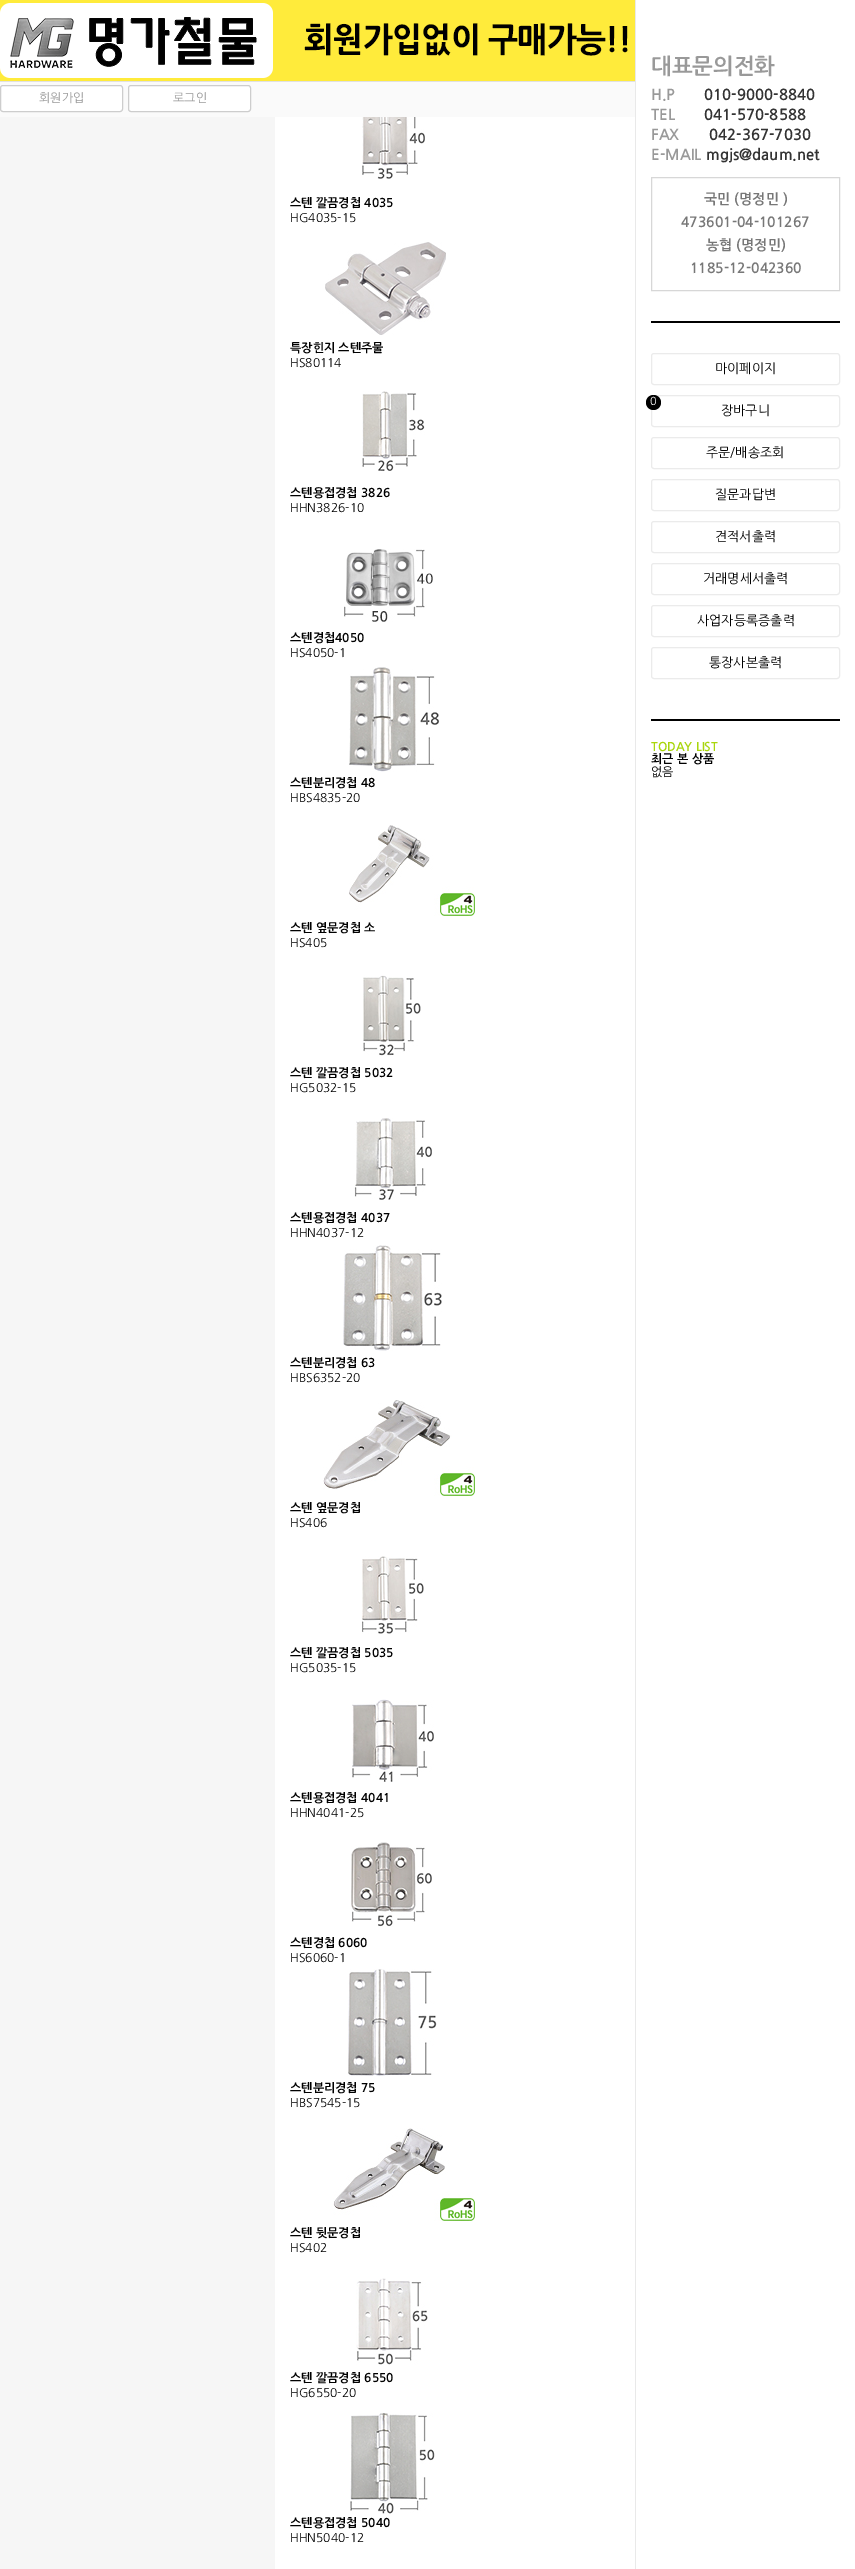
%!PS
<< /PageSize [855 2569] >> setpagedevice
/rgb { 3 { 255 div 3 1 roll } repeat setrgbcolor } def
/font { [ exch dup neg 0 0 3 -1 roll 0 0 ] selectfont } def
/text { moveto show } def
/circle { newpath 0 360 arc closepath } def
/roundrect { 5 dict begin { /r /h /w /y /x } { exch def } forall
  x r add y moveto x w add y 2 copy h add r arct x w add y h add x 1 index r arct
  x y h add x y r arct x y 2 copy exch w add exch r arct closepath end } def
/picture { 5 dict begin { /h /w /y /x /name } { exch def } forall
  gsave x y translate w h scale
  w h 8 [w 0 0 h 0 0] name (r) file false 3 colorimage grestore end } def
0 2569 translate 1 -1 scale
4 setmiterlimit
246 246 246 rgb
0 0 855 2569 rectfill
255 235 59 rgb
0 0 635 81 rectfill
225 225 225 rgb
0 81 635 1 rectfill
(img_01.rgb) 0 3 635 75 picture
250 250 250 rgb
0 82 635 35 rectfill
255 255 255 rgb
0.5 85.5 122 26 2.5 roundrect gsave fill grestore
205 205 205 rgb
stroke
255 255 255 rgb
128.5 85.5 122 26 2.5 roundrect gsave fill grestore
205 205 205 rgb
stroke
255 255 255 rgb
636 0 219 2569 rectfill
233 233 233 rgb
635 0 1 2569 rectfill
215 215 215 rgb
651.5 177.5 188 113 rectstroke
0 0 0 rgb
651 321 189 2 rectfill
651 719 189 2 rectfill
235 235 235 rgb
651.5 353.5 188 31 2.5 roundrect stroke
651.5 395.5 188 31 2.5 roundrect stroke
0 0 0 rgb
653.5 402.5 7.5 circle fill
235 235 235 rgb
651.5 437.5 188 31 2.5 roundrect stroke
651.5 479.5 188 31 2.5 roundrect stroke
651.5 521.5 188 31 2.5 roundrect stroke
651.5 563.5 188 31 2.5 roundrect stroke
651.5 605.5 188 31 2.5 roundrect stroke
651.5 647.5 188 31 2.5 roundrect stroke
255 255 255 rgb
275 117 360 2452 rectfill
(img_02.rgb) 362 117 63 62 picture
(img_03.rgb) 325 242 121 93 picture
(img_04.rgb) 362 391 63 80 picture
(img_05.rgb) 344 549 89 73 picture
(img_06.rgb) 349 667 91 105 picture
(img_07.rgb) 349 825 126 91 picture
(img_08.rgb) 363 975 58 81 picture
(img_09.rgb) 354 1118 78 82 picture
(img_10.rgb) 343 1245 99 106 picture
(img_11.rgb) 323 1400 152 96 picture
(img_12.rgb) 362 1556 62 78 picture
(img_13.rgb) 352 1699 82 83 picture
(img_14.rgb) 351 1842 81 85 picture
(img_15.rgb) 348 1969 89 107 picture
(img_16.rgb) 333 2128 142 93 picture
(img_17.rgb) 356 2278 72 87 picture
(img_18.rgb) 350 2413 85 101 picture
/NanumGothic-Regular 12 font
153 153 153 rgb
(회원가입) 39 102 text
(로그인) 173 102 text
/NanumGothic-Bold 22 font
(대표문의전화) 651 74 text
/NanumGothic-Bold 15 font
(H.P) 651 100 text
51 51 51 rgb
(010-9000-8840) 704 100 text
153 153 153 rgb
(TEL) 651 120 text
51 51 51 rgb
(041-570-8588) 704 120 text
153 153 153 rgb
(FAX) 651 140 text
51 51 51 rgb
(042-367-7030) 709 140 text
153 153 153 rgb
(E-MAIL) 651 160 text
51 51 51 rgb
(mgjs@daum.net) 706 160 text
/NanumGothic-Bold 14 font
119 119 119 rgb
(국민 \(명정민 \)) 704 204 text
(473601-04-101267) 681 227 text
(농협 \(명정민\)) 706 250 text
(1185-12-042360) 690 273 text
/NanumGothic-Regular 13 font
0 0 0 rgb
(마이페이지) 715 373 text
/NanumGothic-Regular 11 font
255 255 255 rgb
(0) 650 405 text
/NanumGothic-Regular 13 font
0 0 0 rgb
(장바구니) 721 415 text
(주문/배송조회) 706 457 text
(질문과답변) 715 499 text
(견적서출력) 715 541 text
(거래명세서출력) 703 583 text
(사업자등록증출력) 697 625 text
(통장사본출력) 709 667 text
/NanumGothic-Bold 12 font
169 214 12 rgb
(TODAY LIST) 651 751 text
0 0 0 rgb
(최근 본 상품) 651 763 text
/NanumGothic-Regular 12 font
(없음) 651 776 text
/NanumGothic-Bold 12 font
(스텐 깔끔경첩 4035) 290 207 text
/NanumGothic-Regular 12 font
(HG4035-15) 290 222 text
/NanumGothic-Bold 12 font
(특장힌지 스텐주물) 290 352 text
/NanumGothic-Regular 12 font
(HS80114) 290 367 text
/NanumGothic-Bold 12 font
(스텐용접경첩 3826) 290 497 text
/NanumGothic-Regular 12 font
(HHN3826-10) 290 512 text
/NanumGothic-Bold 12 font
(스텐경첩4050) 290 642 text
/NanumGothic-Regular 12 font
(HS4050-1) 290 657 text
/NanumGothic-Bold 12 font
(스텐분리경첩 48) 290 787 text
/NanumGothic-Regular 12 font
(HBS4835-20) 290 802 text
/NanumGothic-Bold 12 font
(스텐 옆문경첩 소) 290 932 text
/NanumGothic-Regular 12 font
(HS405) 290 947 text
/NanumGothic-Bold 12 font
(스텐 깔끔경첩 5032) 290 1077 text
/NanumGothic-Regular 12 font
(HG5032-15) 290 1092 text
/NanumGothic-Bold 12 font
(스텐용접경첩 4037) 290 1222 text
/NanumGothic-Regular 12 font
(HHN4037-12) 290 1237 text
/NanumGothic-Bold 12 font
(스텐분리경첩 63) 290 1367 text
/NanumGothic-Regular 12 font
(HBS6352-20) 290 1382 text
/NanumGothic-Bold 12 font
(스텐 옆문경첩) 290 1512 text
/NanumGothic-Regular 12 font
(HS406) 290 1527 text
/NanumGothic-Bold 12 font
(스텐 깔끔경첩 5035) 290 1657 text
/NanumGothic-Regular 12 font
(HG5035-15) 290 1672 text
/NanumGothic-Bold 12 font
(스텐용접경첩 4041) 290 1802 text
/NanumGothic-Regular 12 font
(HHN4041-25) 290 1817 text
/NanumGothic-Bold 12 font
(스텐경첩 6060) 290 1947 text
/NanumGothic-Regular 12 font
(HS6060-1) 290 1962 text
/NanumGothic-Bold 12 font
(스텐분리경첩 75) 290 2092 text
/NanumGothic-Regular 12 font
(HBS7545-15) 290 2107 text
/NanumGothic-Bold 12 font
(스텐 뒷문경첩) 290 2237 text
/NanumGothic-Regular 12 font
(HS402) 290 2252 text
/NanumGothic-Bold 12 font
(스텐 깔끔경첩 6550) 290 2382 text
/NanumGothic-Regular 12 font
(HG6550-20) 290 2397 text
/NanumGothic-Bold 12 font
(스텐용접경첩 5040) 290 2527 text
/NanumGothic-Regular 12 font
(HHN5040-12) 290 2542 text
showpage
